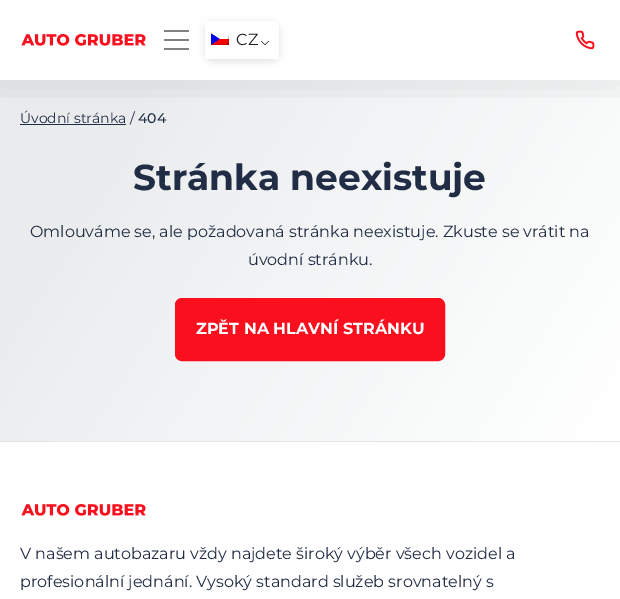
%!PS
<< /PageSize [620 599] /PageUsesTransparency true >> setpagedevice
/rgb { 3 { 255 div 3 1 roll } repeat setrgbcolor } def
/font { [ exch dup neg 0 0 3 -1 roll 0 0 ] selectfont } def
/text { moveto show } def
/alpha { dup .setfillconstantalpha .setstrokeconstantalpha } def
/roundrect { 5 dict begin { /r /h /w /y /x } { exch def } forall
  x r add y moveto x w add y 2 copy h add r arct x w add y h add x 1 index r arct
  x y h add x y r arct x y 2 copy exch w add exch r arct closepath end } def
/shadow { 12 dict begin { /a /b /q /h /w /y /x } { exch def } forall gsave /was 0 def
  9 -2 -9 { dup b mul 4 div /e exch def 1 sub .425 mul 2.718 exch exp 1 add a .99 .min exch div /now exch def
    1 1 now sub 1 was sub div sub alpha /was now def
    w h .min e 2 mul add 0 gt { x e sub y e sub w e 2 mul add h e 2 mul add
      q e add b .6 mul add w h .min 2 div e add .min 0 .max roundrect fill } if } for grestore end } def
/picture { 5 dict begin { /h /w /y /x /name } { exch def } forall
  gsave x y translate w h scale
  w h 8 [w 0 0 h 0 0] name (r) file false 3 colorimage grestore end } def
0 .pushpdf14devicefilter
0 599 translate 1 -1 scale
4 setmiterlimit
255 255 255 rgb
0 0 620 599 rectfill
gsave 0 80 moveto 620 0 rlineto 0 361 rlineto -620 0 rlineto closepath clip newpath
<< /ShadingType 2 /ColorSpace /DeviceRGB /Coords [8 67 612 454] /Extend [true true] /Function << /FunctionType 3 /Domain [0 1] /Functions [<< /FunctionType 2 /Domain [0 1] /C0 [0.914 0.922 0.929] /C1 [0.914 0.922 0.929] /N 1 >> << /FunctionType 2 /Domain [0 1] /C0 [0.914 0.922 0.929] /C1 [1 1 1] /N 1 >> << /FunctionType 2 /Domain [0 1] /C0 [1 1 1] /C1 [1 1 1] /N 1 >>] /Bounds [0.14 0.98] /Encode [0 1 0 1 0 1] >> >> shfill grestore
32 45 68 rgb
20 124 106 1 rectfill
gsave
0 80 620 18 rectclip
0 0 0 rgb
0 5 620 80 0 19.5 0.08 shadow
grestore
(img_01.rgb) 21 34 125 12 picture
128 128 128 rgb
164 30 25 2 rectfill
164 39 25 2 rectfill
164 48 25 2 rectfill
0 0 0 rgb
205 23 74 38 8 4 0.12 shadow
255 255 255 rgb
205 21 74 38 2 roundrect fill
(img_02.rgb) 261 40 8 5 picture
(img_03.rgb) 211 33 18 12 picture
(img_04.rgb) 575 30 20 20 picture
249 15 29 rgb
175.5 298.5 269 62 6.5 roundrect gsave fill grestore
stroke
229 229 229 rgb
0 441 620 1 rectfill
(img_01.rgb) 21 504 125 12 picture
/Montserrat-Regular 16 font
30 30 30 rgb
(CZ) 236 45 text
/Montserrat-Regular 14 font
32 45 68 rgb
(Úvodní stránka /) 20 123 text
/Montserrat-Medium 14 font
(404) 138 123 text
/Montserrat-Bold 36 font
(Stránka neexistuje) 133 190 text
/Montserrat-Regular 16 font
(Omlouváme se, ale požadovaná stránka neexistuje. Zkuste se vrátit na) 30 237 text
(úvodní stránku.) 248 265 text
/Montserrat-Bold 16 font
255 255 255 rgb
(ZPĚT NA HLAVNÍ STRÁNKU) 196 334 text
/Montserrat-Regular 16 font
32 45 68 rgb
(V našem autobazaru vždy najdete široký výběr všech vozidel a) 20 559 text
(profesionální jednání. Vysoký standard služeb srovnatelný s) 20 587 text
.poppdf14devicefilter showpage
